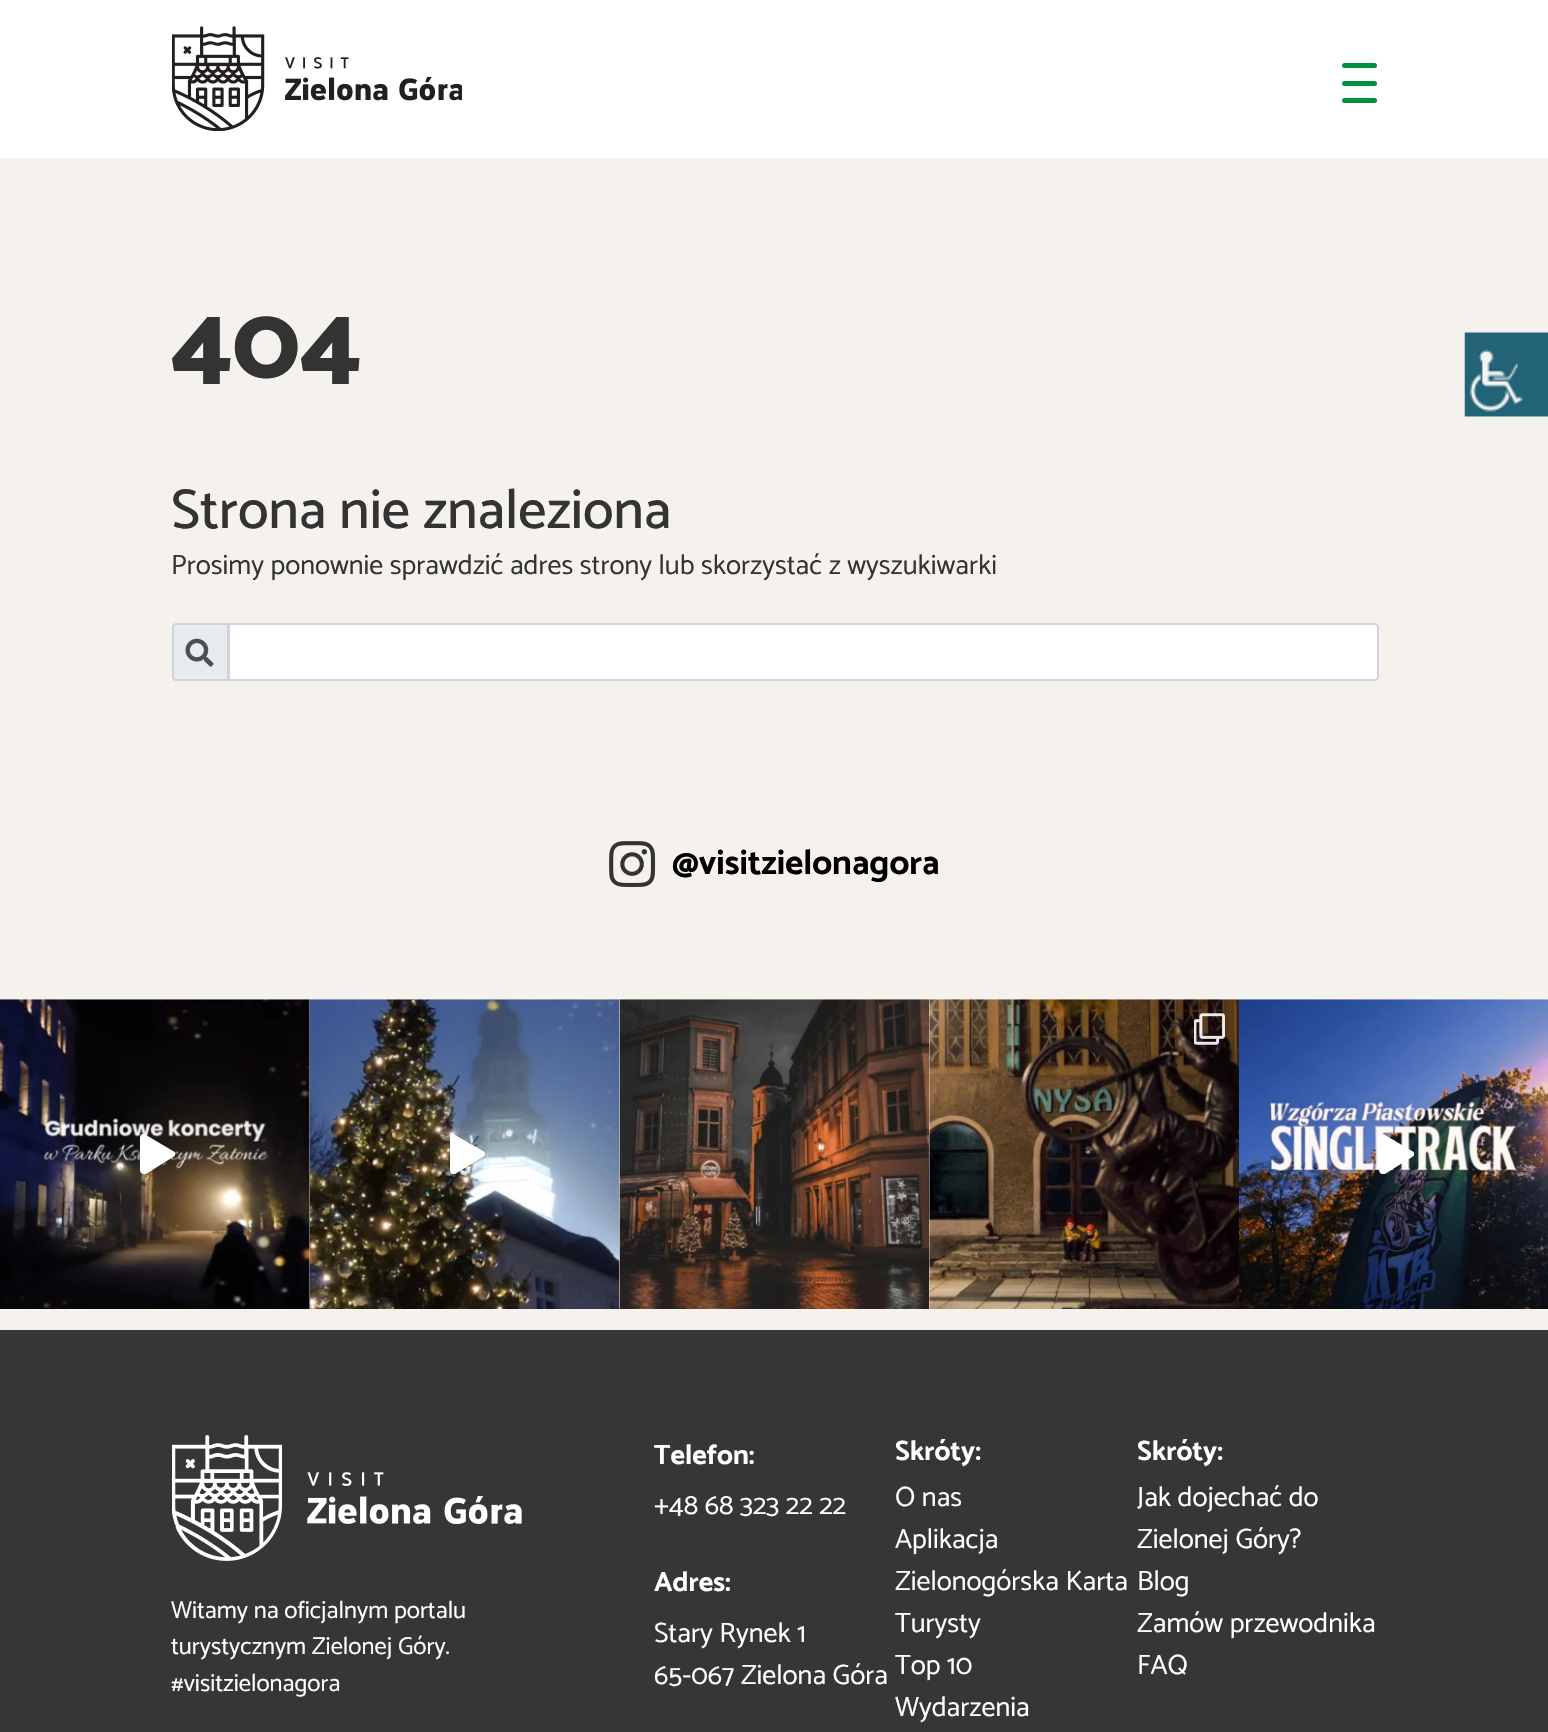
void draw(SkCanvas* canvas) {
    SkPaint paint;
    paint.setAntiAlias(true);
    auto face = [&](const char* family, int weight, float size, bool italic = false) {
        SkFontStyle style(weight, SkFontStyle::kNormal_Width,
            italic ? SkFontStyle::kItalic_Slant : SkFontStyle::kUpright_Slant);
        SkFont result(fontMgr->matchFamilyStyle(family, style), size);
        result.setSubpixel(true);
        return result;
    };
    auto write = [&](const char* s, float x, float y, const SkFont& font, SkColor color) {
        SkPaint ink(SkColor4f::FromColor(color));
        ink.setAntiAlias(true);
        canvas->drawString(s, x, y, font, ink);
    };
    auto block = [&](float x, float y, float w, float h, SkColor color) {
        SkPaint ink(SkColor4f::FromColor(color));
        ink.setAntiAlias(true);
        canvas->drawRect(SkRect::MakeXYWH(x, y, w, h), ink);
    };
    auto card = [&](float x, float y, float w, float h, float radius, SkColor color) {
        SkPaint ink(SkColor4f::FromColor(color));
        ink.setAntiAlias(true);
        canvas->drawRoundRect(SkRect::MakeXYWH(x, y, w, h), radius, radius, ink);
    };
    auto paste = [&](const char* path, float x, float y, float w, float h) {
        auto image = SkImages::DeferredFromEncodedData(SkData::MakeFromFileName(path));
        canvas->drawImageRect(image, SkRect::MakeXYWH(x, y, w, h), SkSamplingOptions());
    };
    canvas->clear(SkColorSetRGB(245, 241, 237));
    block(0, 0, 1548, 158, SK_ColorWHITE);
    paste("pic1.png", 172, 26, 290, 105);
    card(1342, 63, 35, 5, 2.5f, SkColorSetRGB(0, 145, 64));
    card(1342, 81, 35, 5, 2.5f, SkColorSetRGB(0, 145, 64));
    card(1342, 98, 35, 5, 2.5f, SkColorSetRGB(0, 145, 64));
    auto kFont1 = face("Catamaran", 800, 105);
    write("404", 171, 377, kFont1, SkColorSetRGB(51, 51, 51));
    auto kFont2 = face("Catamaran", 500, 56);
    write("Strona nie znaleziona", 171, 528, kFont2, SkColorSetRGB(51, 51, 51));
    auto kFont3 = face("Catamaran", 400, 28);
    write("Prosimy ponownie sprawdzić adres strony lub skorzystać z wyszukiwarki", 171, 574, kFont3, SkColorSetRGB(51, 51, 51));
    paint.setColor(SkColorSetRGB(233, 236, 239));
    canvas->drawPath(SkPathBuilder().moveTo(176, 624).lineTo(228, 624).lineTo(228, 680).lineTo(176, 680).cubicTo(174.5f, 680, 173, 678.5f, 173, 677).lineTo(173, 627).cubicTo(173, 625.5f, 174.5f, 624, 176, 624).close().detach(), paint);
    paint.setStyle(SkPaint::kStroke_Style);
    paint.setStrokeWidth(2);
    paint.setColor(SkColorSetRGB(206, 212, 218));
    canvas->drawPath(SkPathBuilder().moveTo(176, 624).lineTo(228, 624).lineTo(228, 680).lineTo(176, 680).cubicTo(174.5f, 680, 173, 678.5f, 173, 677).lineTo(173, 627).cubicTo(173, 625.5f, 174.5f, 624, 176, 624).close().detach(), paint);
    paste("pic2.png", 185, 638, 29, 29);
    paint.setStyle(SkPaint::kFill_Style);
    paint.setColor(SK_ColorWHITE);
    canvas->drawPath(SkPathBuilder().moveTo(229, 624).lineTo(1375, 624).cubicTo(1376.5f, 624, 1378, 625.5f, 1378, 627).lineTo(1378, 677).cubicTo(1378, 678.5f, 1376.5f, 680, 1375, 680).lineTo(229, 680).close().detach(), paint);
    paint.setStyle(SkPaint::kStroke_Style);
    paint.setColor(SkColorSetRGB(206, 212, 218));
    canvas->drawPath(SkPathBuilder().moveTo(229, 624).lineTo(1375, 624).cubicTo(1376.5f, 624, 1378, 625.5f, 1378, 627).lineTo(1378, 677).cubicTo(1378, 678.5f, 1376.5f, 680, 1375, 680).lineTo(229, 680).close().detach(), paint);
    paste("pic3.png", 609, 841, 47, 46);
    auto kFont4 = face("Catamaran", 700, 35);
    write("@visitzielonagora", 672, 874, kFont4, SK_ColorBLACK);
    paste("pic4.png", 0, 999, 310, 310);
    canvas->save();
    canvas->clipRect(SkRect::MakeXYWH(140, 1134, 35, 40));
    paint.setStyle(SkPaint::kFill_Style);
    paint.setColor(SK_ColorWHITE);
    canvas->drawPath(SkPathBuilder().moveTo(173, 1151).lineTo(146, 1135).cubicTo(143, 1133, 140, 1134, 140, 1138).lineTo(140, 1170).cubicTo(140, 1173, 143, 1175, 146, 1174).lineTo(173, 1157).cubicTo(176, 1156, 176, 1152, 173, 1151).close().detach(), paint);
    canvas->restore();
    paste("pic5.png", 309, 999, 311, 310);
    canvas->save();
    canvas->clipRect(SkRect::MakeXYWH(450, 1134, 35, 40));
    canvas->drawPath(SkPathBuilder().moveTo(483, 1151).lineTo(455, 1135).cubicTo(453, 1133, 450, 1134, 450, 1138).lineTo(450, 1170).cubicTo(450, 1173, 453, 1175, 455, 1174).lineTo(483, 1157).cubicTo(486, 1156, 486, 1152, 483, 1151).close().detach(), paint);
    canvas->restore();
    paste("pic6.png", 619, 999, 311, 310);
    paste("pic7.png", 929, 999, 310, 310);
    paste("pic8.png", 1194, 1013, 31, 32);
    paste("pic9.png", 1239, 999, 309, 310);
    canvas->save();
    canvas->clipRect(SkRect::MakeXYWH(1379, 1134, 35, 40));
    canvas->drawPath(SkPathBuilder().moveTo(1412, 1151).lineTo(1385, 1135).cubicTo(1382, 1133, 1379, 1134, 1379, 1138).lineTo(1379, 1170).cubicTo(1379, 1173, 1382, 1175, 1385, 1174).lineTo(1412, 1157).cubicTo(1415, 1156, 1415, 1152, 1412, 1151).close().detach(), paint);
    canvas->restore();
    block(1465, 416, 83, 1, SK_ColorWHITE);
    paste("pic10.png", 1464, 332, 84, 85);
    block(0, 1330, 1548, 402, SkColorSetRGB(54, 54, 54));
    paste("pic11.png", 172, 1435, 350, 126);
    auto kFont5 = face("Catamaran", 400, 24.5f);
    write("Witamy na oficjalnym portalu", 171, 1618, kFont5, SK_ColorWHITE);
    write("turystycznym Zielonej Góry.", 171, 1654, kFont5, SK_ColorWHITE);
    write("#visitzielonagora", 171, 1691, kFont5, SK_ColorWHITE);
    auto kFont6 = face("Catamaran", 700, 28);
    write("Telefon:", 654, 1464, kFont6, SK_ColorWHITE);
    write("+48 68 323 22 22", 654, 1514, kFont3, SK_ColorWHITE);
    write("Adres:", 654, 1591, kFont6, SK_ColorWHITE);
    write("Stary Rynek 1", 654, 1642, kFont3, SK_ColorWHITE);
    write("65-067 Zielona Góra", 654, 1684, kFont3, SK_ColorWHITE);
    write("Skróty:", 895, 1460, kFont6, SK_ColorWHITE);
    write("O nas", 895, 1506, kFont3, SK_ColorWHITE);
    write("Aplikacja", 895, 1548, kFont3, SK_ColorWHITE);
    write("Zielonogórska Karta", 895, 1590, kFont3, SK_ColorWHITE);
    write("Turysty", 895, 1632, kFont3, SK_ColorWHITE);
    write("Top 10", 895, 1674, kFont3, SK_ColorWHITE);
    write("Wydarzenia", 895, 1716, kFont3, SK_ColorWHITE);
    write("Skróty:", 1137, 1460, kFont6, SK_ColorWHITE);
    write("Jak dojechać do", 1137, 1506, kFont3, SK_ColorWHITE);
    write("Zielonej Góry?", 1137, 1548, kFont3, SK_ColorWHITE);
    write("Blog", 1137, 1590, kFont3, SK_ColorWHITE);
    write("Zamów przewodnika", 1137, 1632, kFont3, SK_ColorWHITE);
    write("FAQ", 1137, 1674, kFont3, SK_ColorWHITE);
}
